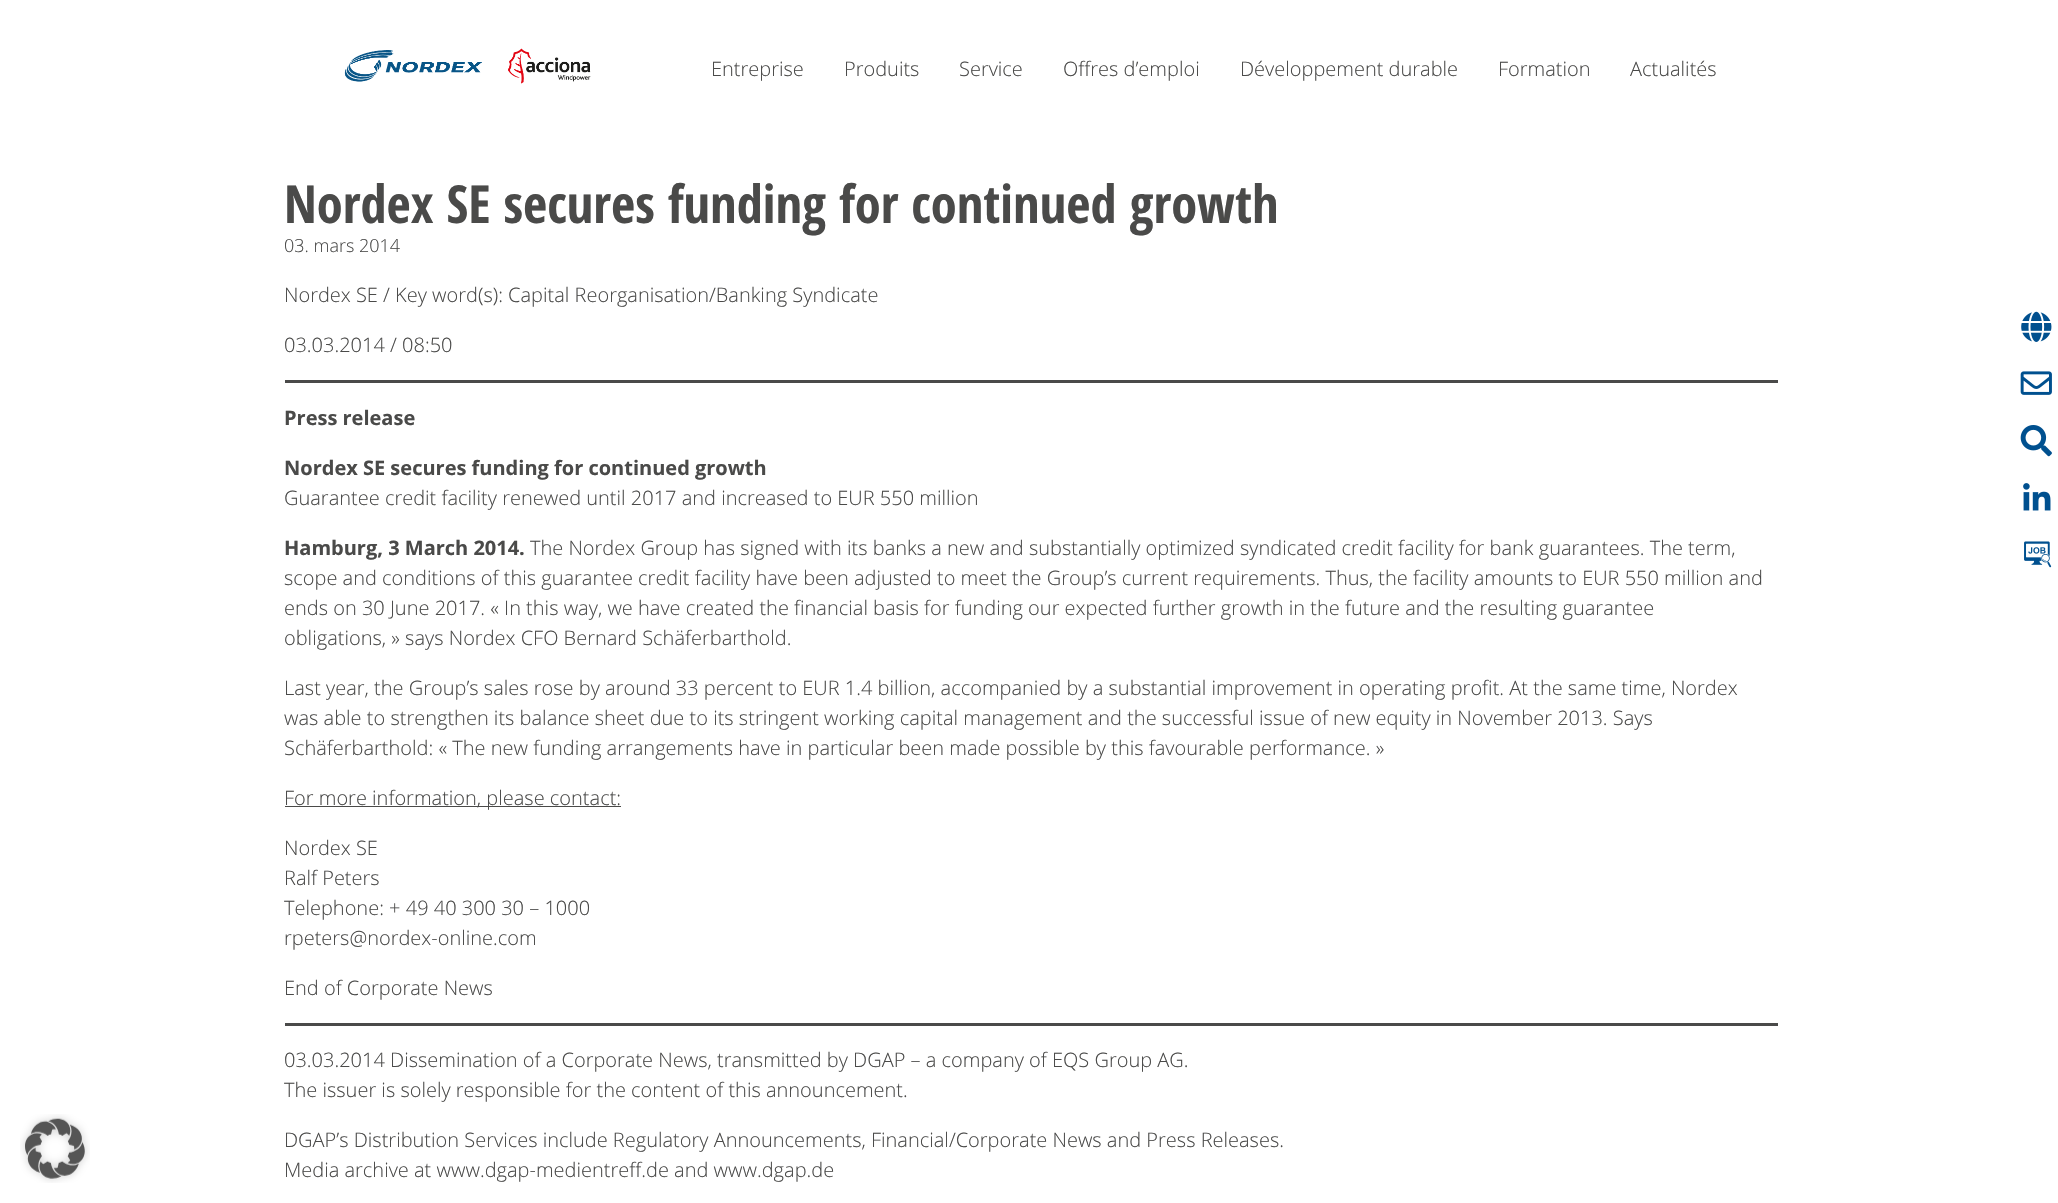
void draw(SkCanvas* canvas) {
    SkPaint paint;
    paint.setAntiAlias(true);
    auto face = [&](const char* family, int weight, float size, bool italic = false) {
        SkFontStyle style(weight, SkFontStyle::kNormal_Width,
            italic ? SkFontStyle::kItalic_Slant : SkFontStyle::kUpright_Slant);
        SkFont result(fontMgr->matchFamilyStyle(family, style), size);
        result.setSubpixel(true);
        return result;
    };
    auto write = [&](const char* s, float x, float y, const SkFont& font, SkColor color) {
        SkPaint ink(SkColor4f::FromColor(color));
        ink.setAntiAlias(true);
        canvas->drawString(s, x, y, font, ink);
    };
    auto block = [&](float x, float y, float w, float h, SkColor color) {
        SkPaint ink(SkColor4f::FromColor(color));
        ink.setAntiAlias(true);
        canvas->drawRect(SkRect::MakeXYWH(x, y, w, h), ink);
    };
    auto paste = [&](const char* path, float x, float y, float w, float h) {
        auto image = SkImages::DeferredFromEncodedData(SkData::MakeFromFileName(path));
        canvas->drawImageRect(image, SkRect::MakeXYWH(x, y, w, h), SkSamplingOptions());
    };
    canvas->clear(SK_ColorWHITE);
    paste("pic1.png", 344, 48, 247, 36);
    auto kFont1 = face("Open Sans", 300, 20);
    write("Entreprise", 711, 76, kFont1, SkColorSetRGB(74, 74, 73));
    write("Produits", 844, 76, kFont1, SkColorSetRGB(74, 74, 73));
    write("Service", 959, 76, kFont1, SkColorSetRGB(74, 74, 73));
    write("Offres d’emploi", 1063, 76, kFont1, SkColorSetRGB(74, 74, 73));
    write("Développement durable", 1240, 76, kFont1, SkColorSetRGB(74, 74, 73));
    write("Formation", 1498, 76, kFont1, SkColorSetRGB(74, 74, 73));
    write("Actualités", 1630, 76, kFont1, SkColorSetRGB(74, 74, 73));
    auto kFont2 = face("Open Sans Condensed", 700, 52.5f);
    write("Nordex SE secures funding for continued growth", 284, 223, kFont2, SkColorSetRGB(74, 74, 73));
    auto kFont3 = face("Open Sans", 300, 18);
    write("03. mars 2014", 284, 252, kFont3, SkColorSetRGB(74, 74, 73));
    write("Nordex SE / Key word(s): Capital Reorganisation/Banking Syndicate", 284, 302, kFont1, SkColorSetRGB(74, 74, 73));
    write("03.03.2014 / 08:50", 284, 352, kFont1, SkColorSetRGB(74, 74, 73));
    block(285, 380, 1493, 3, SkColorSetRGB(74, 74, 73));
    auto kFont4 = face("Open Sans", 700, 20);
    write("Press release", 284, 425, kFont4, SkColorSetRGB(74, 74, 73));
    write("Nordex SE secures funding for continued growth", 284, 475, kFont4, SkColorSetRGB(74, 74, 73));
    write("Guarantee credit facility renewed until 2017 and increased to EUR 550 million", 284, 505, kFont1, SkColorSetRGB(74, 74, 73));
    write("Hamburg, 3 March 2014.", 284, 555, kFont4, SkColorSetRGB(74, 74, 73));
    write("The Nordex Group has signed with its banks a new and substantially optimized syndicated credit facility for bank guarantees. The term,", 530, 555, kFont1, SkColorSetRGB(74, 74, 73));
    write("scope and conditions of this guarantee credit facility have been adjusted to meet the Group’s current requirements. Thus, the facility amounts to EUR 550 million and", 284, 585, kFont1, SkColorSetRGB(74, 74, 73));
    write("ends on 30 June 2017. « In this way, we have created the financial basis for funding our expected further growth in the future and the resulting guarantee", 284, 615, kFont1, SkColorSetRGB(74, 74, 73));
    write("obligations, » says Nordex CFO Bernard Schäferbarthold.", 284, 645, kFont1, SkColorSetRGB(74, 74, 73));
    write("Last year, the Group’s sales rose by around 33 percent to EUR 1.4 billion, accompanied by a substantial improvement in operating profit. At the same time, Nordex", 284, 695, kFont1, SkColorSetRGB(74, 74, 73));
    write("was able to strengthen its balance sheet due to its stringent working capital management and the successful issue of new equity in November 2013. Says", 284, 725, kFont1, SkColorSetRGB(74, 74, 73));
    write("Schäferbarthold: « The new funding arrangements have in particular been made possible by this favourable performance. »", 284, 755, kFont1, SkColorSetRGB(74, 74, 73));
    block(285, 806, 336, 1, SkColorSetRGB(74, 74, 73));
    write("For more information, please contact:", 284, 805, kFont1, SkColorSetRGB(74, 74, 73));
    write("Nordex SE", 284, 855, kFont1, SkColorSetRGB(74, 74, 73));
    write("Ralf Peters", 284, 885, kFont1, SkColorSetRGB(74, 74, 73));
    write("Telephone: + 49 40 300 30 – 1000", 284, 915, kFont1, SkColorSetRGB(74, 74, 73));
    write("rpeters@nordex-online.com", 284, 945, kFont1, SkColorSetRGB(74, 74, 73));
    write("End of Corporate News", 284, 995, kFont1, SkColorSetRGB(74, 74, 73));
    block(285, 1023, 1493, 3, SkColorSetRGB(74, 74, 73));
    write("03.03.2014 Dissemination of a Corporate News, transmitted by DGAP – a company of EQS Group AG.", 284, 1067, kFont1, SkColorSetRGB(74, 74, 73));
    write("The issuer is solely responsible for the content of this announcement.", 284, 1097, kFont1, SkColorSetRGB(74, 74, 73));
    write("DGAP’s Distribution Services include Regulatory Announcements, Financial/Corporate News and Press Releases.", 284, 1147, kFont1, SkColorSetRGB(74, 74, 73));
    write("Media archive at www.dgap-medientreff.de and www.dgap.de", 284, 1177, kFont1, SkColorSetRGB(74, 74, 73));
    paste("pic2.png", 2021, 311, 31, 31);
    paste("pic3.png", 2020, 371, 32, 24);
    paste("pic4.png", 2020, 425, 32, 32);
    paste("pic5.png", 2023, 483, 28, 28);
    paste("pic6.png", 2024, 541, 28, 27);
    paste("pic7.png", 20, 1114, 70, 69);
}
